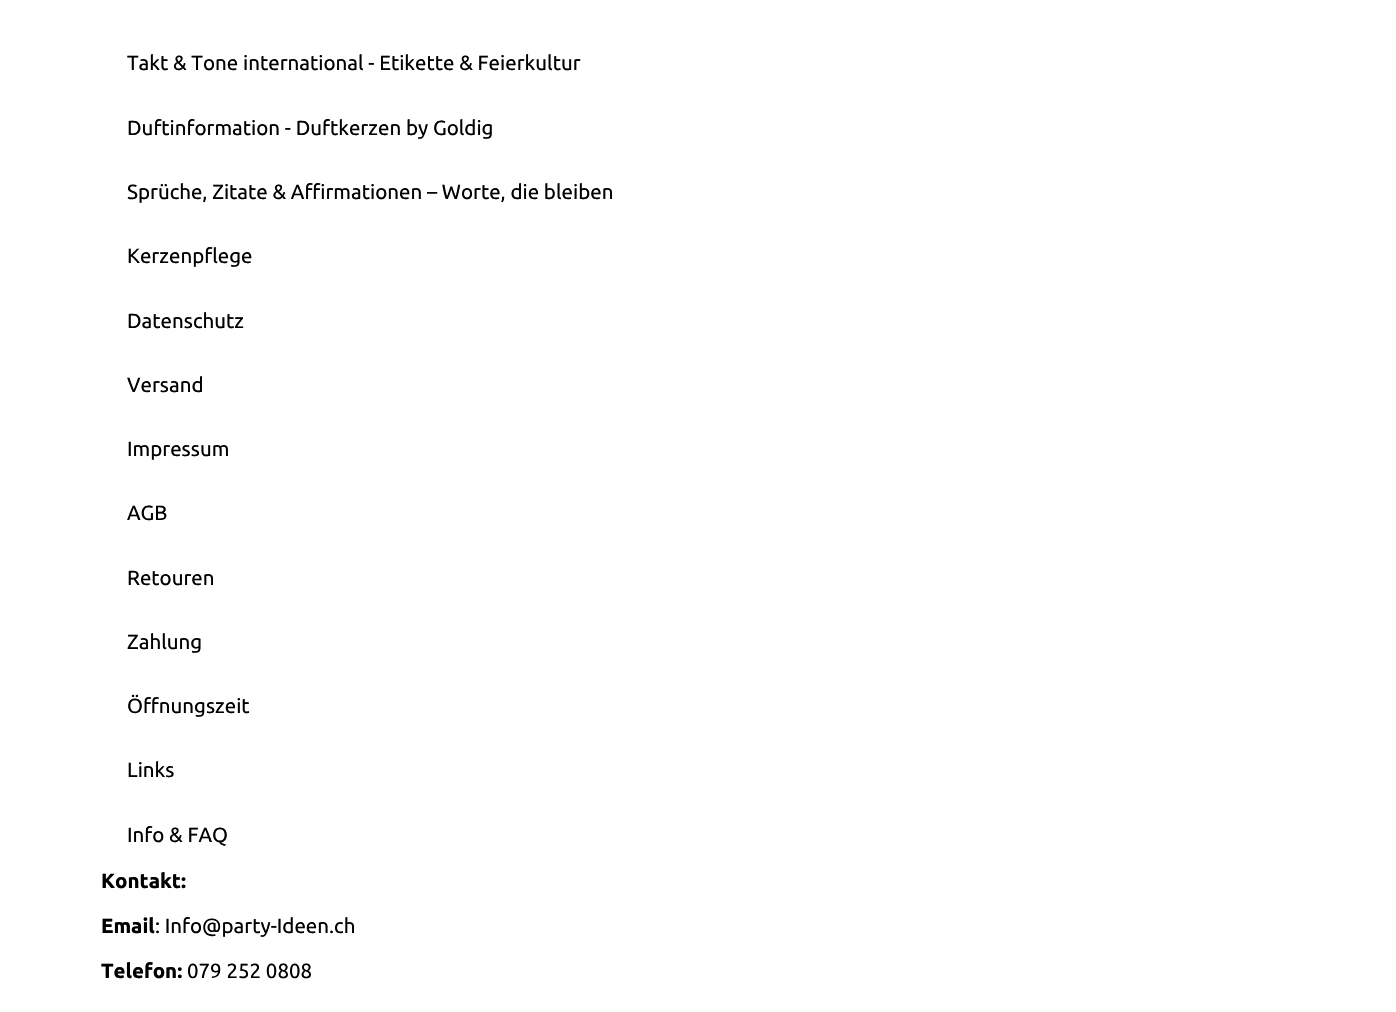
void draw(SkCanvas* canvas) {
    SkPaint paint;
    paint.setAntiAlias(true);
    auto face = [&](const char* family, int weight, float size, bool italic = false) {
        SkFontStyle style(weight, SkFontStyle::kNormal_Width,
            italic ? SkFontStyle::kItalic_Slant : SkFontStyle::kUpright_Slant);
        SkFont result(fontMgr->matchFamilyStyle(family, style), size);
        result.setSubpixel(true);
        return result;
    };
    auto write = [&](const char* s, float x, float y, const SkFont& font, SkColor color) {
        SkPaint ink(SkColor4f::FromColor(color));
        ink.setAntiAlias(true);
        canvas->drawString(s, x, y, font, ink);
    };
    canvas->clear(SK_ColorWHITE);
    auto kFont1 = face("Ubuntu", 400, 20.5f);
    write("Takt & Tone international - Etikette & Feierkultur", 127, 70, kFont1, SK_ColorBLACK);
    write("Duftinformation - Duftkerzen by Goldig", 127, 135, kFont1, SK_ColorBLACK);
    write("Sprüche, Zitate & Affirmationen – Worte, die bleiben", 127, 199, kFont1, SK_ColorBLACK);
    write("Kerzenpflege", 127, 263, kFont1, SK_ColorBLACK);
    write("Datenschutz", 127, 328, kFont1, SK_ColorBLACK);
    write("Versand", 127, 392, kFont1, SK_ColorBLACK);
    write("Impressum", 127, 456, kFont1, SK_ColorBLACK);
    write("AGB", 127, 520, kFont1, SK_ColorBLACK);
    write("Retouren", 127, 585, kFont1, SK_ColorBLACK);
    write("Zahlung", 127, 649, kFont1, SK_ColorBLACK);
    write("Öffnungszeit", 127, 713, kFont1, SK_ColorBLACK);
    write("Links", 127, 777, kFont1, SK_ColorBLACK);
    write("Info & FAQ", 127, 842, kFont1, SK_ColorBLACK);
    auto kFont2 = face("Ubuntu", 700, 20.5f);
    write("Kontakt:", 101, 888, kFont2, SK_ColorBLACK);
    write("Email", 101, 933, kFont2, SK_ColorBLACK);
    write(": Info@party-Ideen.ch", 155, 933, kFont1, SK_ColorBLACK);
    write("Telefon:", 101, 978, kFont2, SK_ColorBLACK);
    write("079 252 0808", 187, 978, kFont1, SK_ColorBLACK);
}
